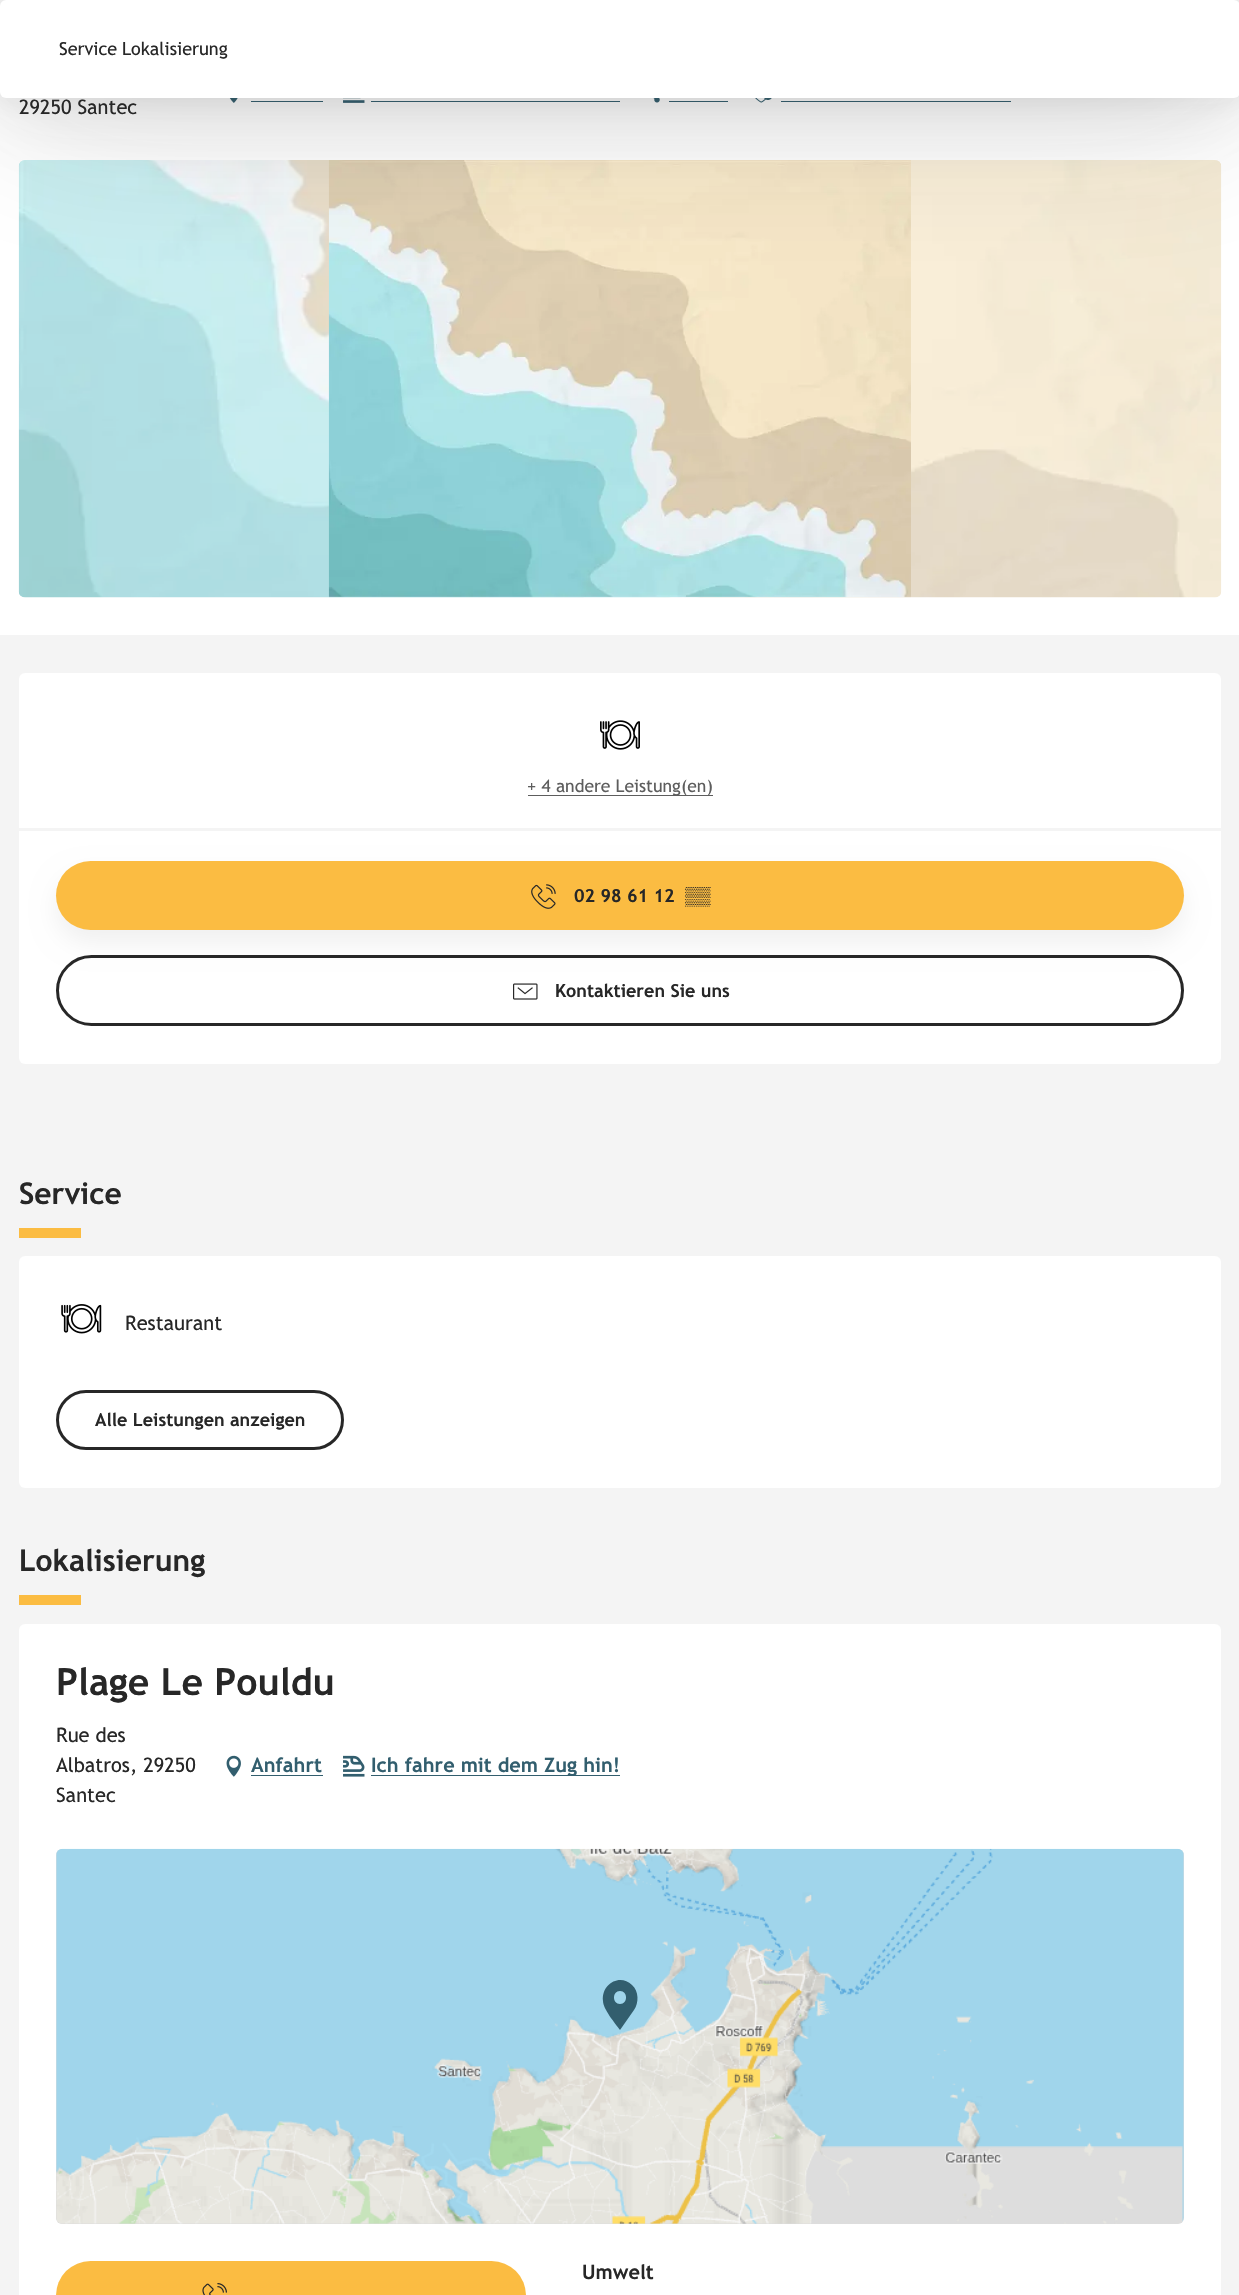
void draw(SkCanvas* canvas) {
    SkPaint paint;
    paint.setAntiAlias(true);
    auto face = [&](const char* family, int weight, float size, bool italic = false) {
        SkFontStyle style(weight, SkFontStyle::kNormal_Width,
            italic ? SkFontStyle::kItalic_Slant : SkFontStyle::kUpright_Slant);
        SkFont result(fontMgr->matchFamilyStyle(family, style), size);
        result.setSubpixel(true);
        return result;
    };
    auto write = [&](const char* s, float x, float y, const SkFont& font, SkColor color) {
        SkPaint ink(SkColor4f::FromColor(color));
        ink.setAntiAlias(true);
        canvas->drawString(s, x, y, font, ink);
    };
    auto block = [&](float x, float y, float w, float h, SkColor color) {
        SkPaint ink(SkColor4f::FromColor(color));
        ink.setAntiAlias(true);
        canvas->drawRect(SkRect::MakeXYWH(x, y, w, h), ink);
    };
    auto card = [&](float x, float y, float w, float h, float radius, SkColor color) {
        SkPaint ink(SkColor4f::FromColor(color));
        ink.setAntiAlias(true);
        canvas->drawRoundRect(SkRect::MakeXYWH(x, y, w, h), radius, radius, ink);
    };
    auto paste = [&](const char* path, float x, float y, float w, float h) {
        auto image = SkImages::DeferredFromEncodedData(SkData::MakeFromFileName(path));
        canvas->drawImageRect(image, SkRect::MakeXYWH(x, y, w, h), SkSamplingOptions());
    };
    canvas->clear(SK_ColorWHITE);
    block(0, 635, 1239, 1660, SkColorSetRGB(244, 244, 244));
    paste("pic9.png", 229, 98, 9, 5);
    block(251, 101, 72, 1, SkColorSetRGB(50, 94, 110));
    paste("pic10.png", 343, 98, 22, 5);
    block(371, 101, 249, 1, SkColorSetRGB(50, 94, 110));
    paste("pic11.png", 653, 98, 7, 5);
    block(669, 101, 59, 1, SkColorSetRGB(50, 94, 110));
    paste("pic12.png", 755, 98, 17, 5);
    block(781, 101, 230, 1, SkColorSetRGB(50, 94, 110));
    paste("pic13.png", 18, 160, 1204, 438);
    card(19, 160, 1202, 438, 6, SkColorSetARGB(77, 255, 255, 255));
    paste("pic14.png", 328, 160, 583, 438);
    paint.setColor(SkColorSetARGB(51, 39, 39, 39));
    paint.setMaskFilter(SkMaskFilter::MakeBlur(kNormal_SkBlurStyle, 87.5f));
    canvas->drawRoundRect(SkRect::MakeXYWH(0, 0, 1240, 98), 6, 6, paint);
    paint.setMaskFilter(nullptr);
    paint.setColor(SkColorSetARGB(38, 39, 39, 39));
    paint.setMaskFilter(SkMaskFilter::MakeBlur(kNormal_SkBlurStyle, 44));
    canvas->drawRoundRect(SkRect::MakeXYWH(0, 0, 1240, 98), 6, 6, paint);
    paint.setMaskFilter(nullptr);
    paint.setColor(SkColorSetARGB(18, 39, 39, 39));
    paint.setMaskFilter(SkMaskFilter::MakeBlur(kNormal_SkBlurStyle, 14.5f));
    canvas->drawRoundRect(SkRect::MakeXYWH(0, 0, 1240, 98), 6, 6, paint);
    paint.setMaskFilter(nullptr);
    card(0, 0, 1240, 98, 6, SK_ColorWHITE);
    auto kFont1 = face("Trebuchet MS", 400, 18);
    write("Service", 59, 55, kFont1, SkColorSetRGB(39, 39, 39));
    write("Lokalisierung", 122, 55, kFont1, SkColorSetRGB(39, 39, 39));
    auto kFont2 = face("Trebuchet MS", 700, 30);
    write("Service", 19, 1204, kFont2, SkColorSetRGB(39, 39, 39));
    block(19, 1228, 62, 10, SkColorSetRGB(251, 188, 66));
    card(19, 1256, 1202, 232, 6, SK_ColorWHITE);
    paste("pic1.png", 61, 1304, 41, 30);
    auto kFont3 = face("Trebuchet MS", 400, 20);
    write("Restaurant", 125, 1330, kFont3, SkColorSetRGB(39, 39, 39));
    paint.setStyle(SkPaint::kStroke_Style);
    paint.setStrokeWidth(3);
    paint.setColor(SkColorSetRGB(39, 39, 39));
    canvas->drawRoundRect(SkRect::MakeXYWH(57.5f, 1391.5f, 285, 57), 28.5f, 28.5f, paint);
    auto kFont4 = face("Trebuchet MS", 700, 18);
    write("Alle Leistungen anzeigen", 95, 1426, kFont4, SkColorSetRGB(39, 39, 39));
    card(19, 673, 1202, 391, 6, SK_ColorWHITE);
    paste("pic2.png", 600, 720, 40, 30);
    block(528, 795, 185, 1, SkColorSetRGB(93, 93, 93));
    auto kFont5 = face("Trebuchet MS", 400, 17.5f);
    write("+ 4 andere Leistung(en)", 527, 792, kFont5, SkColorSetRGB(93, 93, 93));
    block(19, 828, 1202, 3, SkColorSetRGB(244, 244, 244));
    canvas->drawRoundRect(SkRect::MakeXYWH(57.5f, 956.5f, 1125, 68), 34, 34, paint);
    paint.setStyle(SkPaint::kFill_Style);
    paint.setColor(SkColorSetARGB(15, 0, 0, 0));
    paint.setMaskFilter(SkMaskFilter::MakeBlur(kNormal_SkBlurStyle, 12.5f));
    canvas->drawRoundRect(SkRect::MakeXYWH(56, 874, 1128, 69), 34.5f, 34.5f, paint);
    paint.setMaskFilter(nullptr);
    card(56, 861, 1128, 69, 34.5f, SkColorSetRGB(251, 188, 66));
    paste("pic3.png", 531, 884, 25, 25);
    write("02 98 61 12", 574, 902, kFont4, SkColorSetRGB(39, 39, 39));
    auto kFont6 = face("Liberation Sans", 700, 18);
    write("▒▒", 685, 902, kFont6, SkColorSetRGB(39, 39, 39));
    paste("pic4.png", 513, 983, 25, 17);
    write("Kontaktieren Sie uns", 555, 997, kFont4, SkColorSetRGB(39, 39, 39));
    write("Lokalisierung", 19, 1571, kFont2, SkColorSetRGB(39, 39, 39));
    block(19, 1595, 62, 10, SkColorSetRGB(251, 188, 66));
    card(19, 1624, 1202, 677, 6, SK_ColorWHITE);
    auto kFont7 = face("Trebuchet MS", 700, 37.5f);
    write("Plage Le Pouldu", 56, 1695, kFont7, SkColorSetRGB(39, 39, 39));
    write("Rue des", 56, 1742, kFont3, SkColorSetRGB(39, 39, 39));
    write("Albatros, 29250", 56, 1772, kFont3, SkColorSetRGB(39, 39, 39));
    write("Santec", 56, 1802, kFont3, SkColorSetRGB(39, 39, 39));
    paste("pic5.png", 226, 1755, 15, 22);
    auto kFont8 = face("Trebuchet MS", 700, 20);
    write("Anfahrt", 251, 1772, kFont8, SkColorSetRGB(50, 94, 110));
    block(251, 1775, 72, 1, SkColorSetRGB(50, 94, 110));
    paste("pic6.png", 343, 1755, 22, 22);
    block(371, 1775, 249, 1, SkColorSetRGB(50, 94, 110));
    write("Ich fahre mit dem Zug hin!", 371, 1772, kFont8, SkColorSetRGB(50, 94, 110));
    card(56, 1849, 1128, 375, 6, SkColorSetRGB(221, 221, 221));
    paste("pic7.png", 56, 1848, 1128, 376);
    paint.setColor(SkColorSetRGB(50, 94, 110));
    canvas->drawPath(SkPathBuilder().moveTo(632, 1985).cubicTo(620, 1973, 601, 1984, 603, 2001).cubicTo(603, 2009, 615, 2023, 620, 2030).lineTo(634, 2010).cubicTo(639, 2003, 639, 1991, 632, 1985).close().moveTo(620, 2004).cubicTo(612, 2004, 612, 1991, 620, 1991).cubicTo(628, 1991, 628, 2004, 620, 2004).close().detach(), paint);
    card(56, 2261, 470, 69, 34.5f, SkColorSetRGB(251, 188, 66));
    paste("pic8.png", 202, 2283, 25, 12);
    write("Umwelt", 582, 2279, kFont8, SkColorSetRGB(39, 39, 39));
    write("29250 Santec", 19, 114, kFont3, SkColorSetRGB(39, 39, 39));
}
